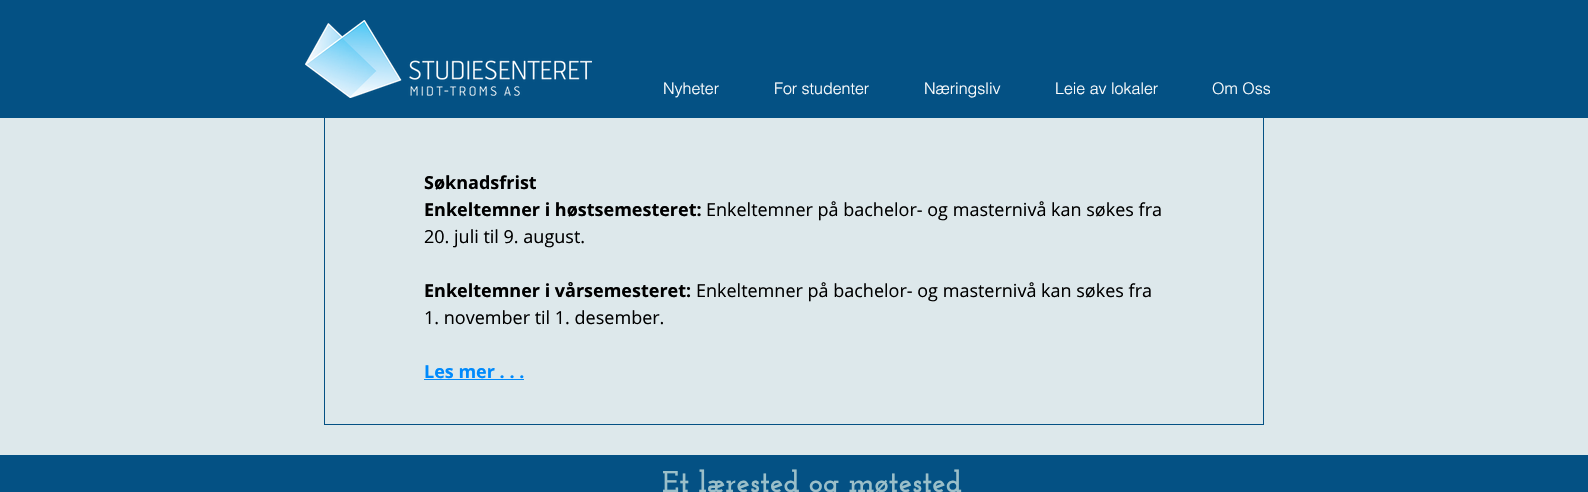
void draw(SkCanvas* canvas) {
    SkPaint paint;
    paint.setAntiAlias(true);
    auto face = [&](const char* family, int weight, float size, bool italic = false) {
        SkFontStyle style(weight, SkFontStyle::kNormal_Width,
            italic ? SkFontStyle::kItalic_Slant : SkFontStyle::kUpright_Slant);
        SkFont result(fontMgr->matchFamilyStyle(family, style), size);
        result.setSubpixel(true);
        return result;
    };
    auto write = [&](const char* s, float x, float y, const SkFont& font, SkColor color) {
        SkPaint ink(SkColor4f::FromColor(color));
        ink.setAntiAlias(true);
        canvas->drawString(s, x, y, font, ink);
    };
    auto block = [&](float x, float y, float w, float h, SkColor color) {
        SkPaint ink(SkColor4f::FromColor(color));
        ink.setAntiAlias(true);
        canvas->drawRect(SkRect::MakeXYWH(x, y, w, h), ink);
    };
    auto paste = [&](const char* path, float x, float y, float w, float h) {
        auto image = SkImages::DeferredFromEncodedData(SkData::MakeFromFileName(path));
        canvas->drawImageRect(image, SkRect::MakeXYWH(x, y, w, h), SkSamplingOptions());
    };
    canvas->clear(SkColorSetRGB(221, 232, 235));
    paint.setStyle(SkPaint::kStroke_Style);
    paint.setStrokeWidth(1);
    paint.setColor(SkColorSetRGB(4, 81, 132));
    canvas->drawRect(SkRect::MakeXYWH(324.5f, -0.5f, 939, 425), paint);
    block(0, 0, 1588, 118, SkColorSetRGB(4, 81, 132));
    paste("pic1.png", 305, 20, 287, 78);
    auto kFont1 = face("helvetica", 300, 16);
    write("Nyheter", 663, 94, kFont1, SK_ColorWHITE);
    write("For studenter", 774, 94, kFont1, SK_ColorWHITE);
    write("Næringsliv", 924, 94, kFont1, SK_ColorWHITE);
    write("Leie av lokaler", 1055, 94, kFont1, SK_ColorWHITE);
    write("Om Oss", 1212, 94, kFont1, SK_ColorWHITE);
    auto kFont2 = face("Open Sans", 700, 18);
    write("Søknadsfrist", 424, 189, kFont2, SK_ColorBLACK);
    write("Enkeltemner i høstsemesteret:", 424, 216, kFont2, SK_ColorBLACK);
    auto kFont3 = face("Open Sans", 400, 18);
    write("Enkeltemner på bachelor- og masternivå kan søkes fra", 706, 216, kFont3, SK_ColorBLACK);
    write("20. juli til 9. august.", 424, 243, kFont3, SK_ColorBLACK);
    write("Enkeltemner i vårsemesteret:", 424, 297, kFont2, SK_ColorBLACK);
    write("Enkeltemner på bachelor- og masternivå kan søkes fra", 696, 297, kFont3, SK_ColorBLACK);
    write("1. november til 1. desember.", 424, 324, kFont3, SK_ColorBLACK);
    write("Les mer . . .", 424, 378, kFont2, SkColorSetRGB(0, 138, 252));
    block(424, 379, 100, 1, SkColorSetRGB(0, 138, 252));
    block(0, 455, 1588, 37, SkColorSetRGB(4, 81, 132));
    auto kFont4 = face("Josefin Slab", 700, 30);
    write("Et lærested og møtested", 662, 492, kFont4, SkColorSetRGB(155, 191, 201));
}
